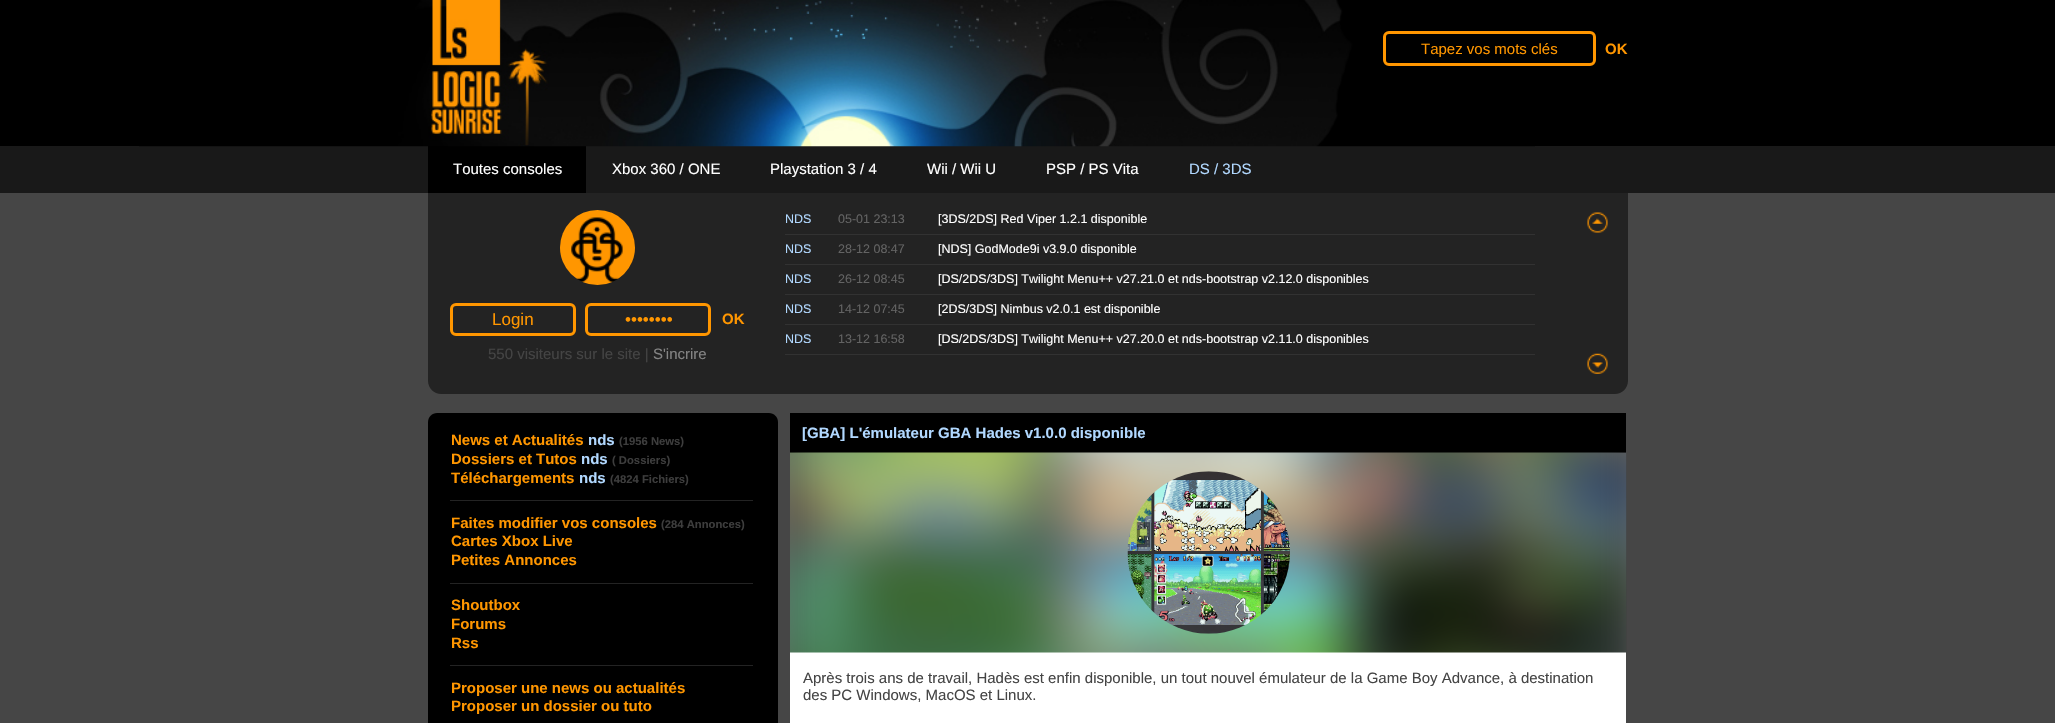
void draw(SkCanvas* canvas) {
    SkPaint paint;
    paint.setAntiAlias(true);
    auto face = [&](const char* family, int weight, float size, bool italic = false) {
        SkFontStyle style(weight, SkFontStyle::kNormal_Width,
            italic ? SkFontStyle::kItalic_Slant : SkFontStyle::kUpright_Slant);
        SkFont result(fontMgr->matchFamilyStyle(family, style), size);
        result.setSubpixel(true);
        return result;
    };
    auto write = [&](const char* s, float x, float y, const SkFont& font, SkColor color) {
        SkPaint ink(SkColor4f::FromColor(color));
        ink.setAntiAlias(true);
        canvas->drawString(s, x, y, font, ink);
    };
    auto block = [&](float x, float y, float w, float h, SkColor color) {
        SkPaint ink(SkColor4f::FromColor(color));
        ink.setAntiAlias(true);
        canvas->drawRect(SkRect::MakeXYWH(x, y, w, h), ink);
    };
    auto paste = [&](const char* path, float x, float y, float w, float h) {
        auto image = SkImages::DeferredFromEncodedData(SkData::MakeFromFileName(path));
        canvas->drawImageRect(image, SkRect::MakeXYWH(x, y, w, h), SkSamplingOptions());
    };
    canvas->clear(SkColorSetRGB(70, 70, 70));
    block(0, 0, 2055, 146, SK_ColorBLACK);
    block(0, 146, 2055, 47, SkColorSetRGB(25, 25, 25));
    block(428, 146, 158, 47, SK_ColorBLACK);
    paste("pic1.png", 139, 0, 1396, 147);
    paint.setStyle(SkPaint::kStroke_Style);
    paint.setStrokeWidth(3);
    paint.setColor(SkColorSetRGB(255, 150, 0));
    canvas->drawRoundRect(SkRect::MakeXYWH(1384.5f, 32.5f, 210, 32), 4.5f, 4.5f, paint);
    auto kFont1 = face("Liberation Sans", 400, 15);
    write("Tapez vos mots clés", 1421, 54, kFont1, SkColorSetRGB(255, 150, 0));
    auto kFont2 = face("Liberation Sans", 700, 15);
    write("OK", 1605, 54, kFont2, SkColorSetRGB(255, 150, 0));
    write("Toutes consoles", 453, 174, kFont1, SK_ColorWHITE);
    write("Xbox 360 / ONE", 612, 174, kFont1, SK_ColorWHITE);
    write("Playstation 3 / 4", 770, 174, kFont1, SK_ColorWHITE);
    write("Wii / Wii U", 927, 174, kFont1, SK_ColorWHITE);
    write("PSP / PS Vita", 1046, 174, kFont1, SK_ColorWHITE);
    write("DS / 3DS", 1189, 174, kFont1, SkColorSetRGB(177, 216, 255));
    paint.setStyle(SkPaint::kFill_Style);
    paint.setColor(SkColorSetRGB(35, 35, 35));
    canvas->drawPath(SkPathBuilder().moveTo(428, 193).lineTo(1628, 193).lineTo(1628, 381).cubicTo(1628, 388, 1622, 394, 1615, 394).lineTo(441, 394).cubicTo(434, 394, 428, 388, 428, 381).close().detach(), paint);
    paste("pic2.png", 560, 210, 75, 75);
    paint.setStyle(SkPaint::kStroke_Style);
    paint.setColor(SkColorSetRGB(255, 150, 0));
    canvas->drawRoundRect(SkRect::MakeXYWH(451.5f, 304.5f, 123, 30), 4.5f, 4.5f, paint);
    auto kFont3 = face("Liberation Sans", 400, 17);
    write("Login", 492, 325, kFont3, SkColorSetRGB(255, 150, 0));
    canvas->drawRoundRect(SkRect::MakeXYWH(586.5f, 304.5f, 123, 30), 4.5f, 4.5f, paint);
    write("••••••••", 625, 325, kFont3, SkColorSetRGB(255, 150, 0));
    write("OK", 722, 324, kFont2, SkColorSetRGB(255, 150, 0));
    write("550 visiteurs sur le site |", 488, 359, kFont1, SkColorSetRGB(68, 68, 68));
    write("S'incrire", 653, 359, kFont1, SkColorSetRGB(132, 132, 132));
    auto kFont4 = face("Liberation Sans", 400, 12.5f);
    write("NDS", 785, 223, kFont4, SkColorSetRGB(177, 216, 255));
    write("05-01 23:13", 838, 223, kFont4, SkColorSetRGB(99, 99, 99));
    write("[3DS/2DS] Red Viper 1.2.1 disponible", 938, 223, kFont4, SK_ColorWHITE);
    block(785, 234, 750, 1, SkColorSetRGB(50, 50, 50));
    write("NDS", 785, 253, kFont4, SkColorSetRGB(177, 216, 255));
    write("28-12 08:47", 838, 253, kFont4, SkColorSetRGB(99, 99, 99));
    write("[NDS] GodMode9i v3.9.0 disponible", 938, 253, kFont4, SK_ColorWHITE);
    block(785, 264, 750, 1, SkColorSetRGB(50, 50, 50));
    write("NDS", 785, 283, kFont4, SkColorSetRGB(177, 216, 255));
    write("26-12 08:45", 838, 283, kFont4, SkColorSetRGB(99, 99, 99));
    write("[DS/2DS/3DS] Twilight Menu++ v27.21.0 et nds-bootstrap v2.12.0 disponibles", 938, 283, kFont4, SK_ColorWHITE);
    block(785, 294, 750, 1, SkColorSetRGB(50, 50, 50));
    write("NDS", 785, 313, kFont4, SkColorSetRGB(177, 216, 255));
    write("14-12 07:45", 838, 313, kFont4, SkColorSetRGB(99, 99, 99));
    write("[2DS/3DS] Nimbus v2.0.1 est disponible", 938, 313, kFont4, SK_ColorWHITE);
    block(785, 324, 750, 1, SkColorSetRGB(50, 50, 50));
    write("NDS", 785, 343, kFont4, SkColorSetRGB(177, 216, 255));
    write("13-12 16:58", 838, 343, kFont4, SkColorSetRGB(99, 99, 99));
    write("[DS/2DS/3DS] Twilight Menu++ v27.20.0 et nds-bootstrap v2.11.0 disponibles", 938, 343, kFont4, SK_ColorWHITE);
    block(785, 354, 750, 1, SkColorSetRGB(50, 50, 50));
    paste("pic3.png", 1587, 212, 21, 21);
    paste("pic4.png", 1587, 353, 21, 21);
    paint.setStyle(SkPaint::kFill_Style);
    paint.setColor(SK_ColorBLACK);
    canvas->drawPath(SkPathBuilder().moveTo(437, 413).lineTo(769, 413).cubicTo(774, 413, 778, 417, 778, 422).lineTo(778, 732).lineTo(428, 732).lineTo(428, 422).cubicTo(428, 417, 432, 413, 437, 413).close().detach(), paint);
    write("News et Actualités", 451, 445, kFont2, SkColorSetRGB(255, 150, 0));
    write("nds", 588, 445, kFont2, SkColorSetRGB(177, 216, 255));
    auto kFont5 = face("Liberation Sans", 700, 11.25f);
    write("(1956 News)", 619, 445, kFont5, SkColorSetRGB(61, 61, 61));
    write("Dossiers et Tutos", 451, 464, kFont2, SkColorSetRGB(255, 150, 0));
    write("nds", 581, 464, kFont2, SkColorSetRGB(177, 216, 255));
    write("( Dossiers)", 612, 464, kFont5, SkColorSetRGB(61, 61, 61));
    write("Téléchargements", 451, 483, kFont2, SkColorSetRGB(255, 150, 0));
    write("nds", 579, 483, kFont2, SkColorSetRGB(177, 216, 255));
    write("(4824 Fichiers)", 610, 483, kFont5, SkColorSetRGB(61, 61, 61));
    block(450, 500, 303, 1, SkColorSetRGB(35, 35, 35));
    write("Faites modifier vos consoles", 451, 528, kFont2, SkColorSetRGB(255, 150, 0));
    write("(284 Annonces)", 661, 528, kFont5, SkColorSetRGB(61, 61, 61));
    write("Cartes Xbox Live", 451, 546, kFont2, SkColorSetRGB(255, 150, 0));
    write("Petites Annonces", 451, 565, kFont2, SkColorSetRGB(255, 150, 0));
    block(450, 583, 303, 1, SkColorSetRGB(35, 35, 35));
    write("Shoutbox", 451, 610, kFont2, SkColorSetRGB(255, 150, 0));
    write("Forums", 451, 629, kFont2, SkColorSetRGB(255, 150, 0));
    write("Rss", 451, 648, kFont2, SkColorSetRGB(255, 150, 0));
    block(450, 665, 303, 1, SkColorSetRGB(35, 35, 35));
    write("Proposer une news ou actualités", 451, 693, kFont2, SkColorSetRGB(255, 150, 0));
    write("Proposer un dossier ou tuto", 451, 711, kFont2, SkColorSetRGB(255, 150, 0));
    block(790, 413, 836, 40, SK_ColorBLACK);
    write("[GBA] L'émulateur GBA Hades v1.0.0 disponible", 802, 438, kFont2, SkColorSetRGB(177, 216, 255));
    block(790, 453, 836, 270, SK_ColorWHITE);
    paste("pic5.png", 790, 452, 837, 201);
    paste("pic6.png", 1127, 471, 163, 163);
    write("Après trois ans de travail, Hadès est enfin disponible, un tout nouvel émulateur de la Game Boy Advance, à destination", 803, 683, kFont1, SkColorSetRGB(68, 68, 68));
    write("des PC Windows, MacOS et Linux.", 803, 700, kFont1, SkColorSetRGB(68, 68, 68));
}
